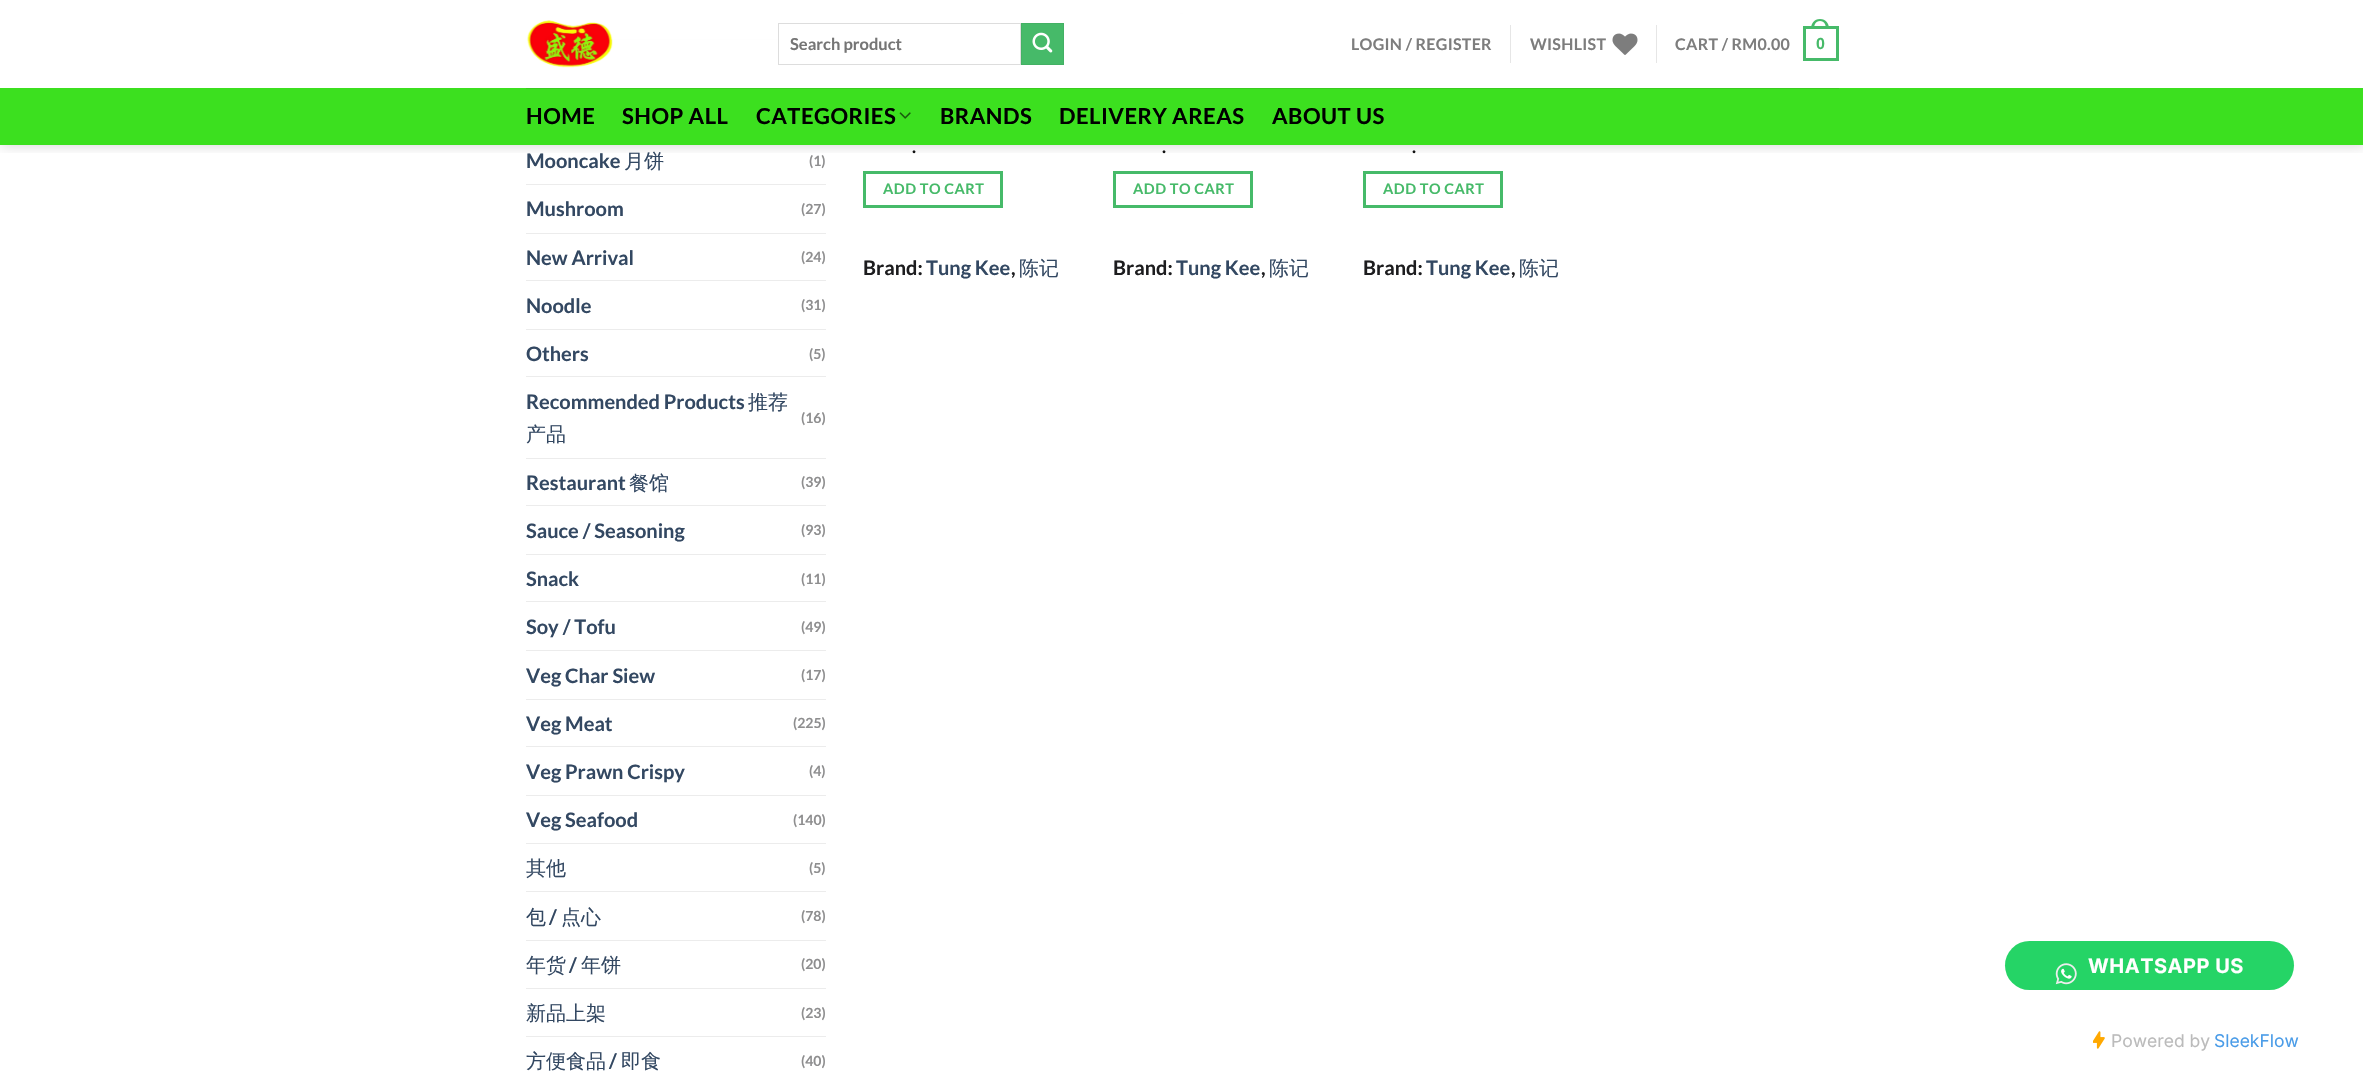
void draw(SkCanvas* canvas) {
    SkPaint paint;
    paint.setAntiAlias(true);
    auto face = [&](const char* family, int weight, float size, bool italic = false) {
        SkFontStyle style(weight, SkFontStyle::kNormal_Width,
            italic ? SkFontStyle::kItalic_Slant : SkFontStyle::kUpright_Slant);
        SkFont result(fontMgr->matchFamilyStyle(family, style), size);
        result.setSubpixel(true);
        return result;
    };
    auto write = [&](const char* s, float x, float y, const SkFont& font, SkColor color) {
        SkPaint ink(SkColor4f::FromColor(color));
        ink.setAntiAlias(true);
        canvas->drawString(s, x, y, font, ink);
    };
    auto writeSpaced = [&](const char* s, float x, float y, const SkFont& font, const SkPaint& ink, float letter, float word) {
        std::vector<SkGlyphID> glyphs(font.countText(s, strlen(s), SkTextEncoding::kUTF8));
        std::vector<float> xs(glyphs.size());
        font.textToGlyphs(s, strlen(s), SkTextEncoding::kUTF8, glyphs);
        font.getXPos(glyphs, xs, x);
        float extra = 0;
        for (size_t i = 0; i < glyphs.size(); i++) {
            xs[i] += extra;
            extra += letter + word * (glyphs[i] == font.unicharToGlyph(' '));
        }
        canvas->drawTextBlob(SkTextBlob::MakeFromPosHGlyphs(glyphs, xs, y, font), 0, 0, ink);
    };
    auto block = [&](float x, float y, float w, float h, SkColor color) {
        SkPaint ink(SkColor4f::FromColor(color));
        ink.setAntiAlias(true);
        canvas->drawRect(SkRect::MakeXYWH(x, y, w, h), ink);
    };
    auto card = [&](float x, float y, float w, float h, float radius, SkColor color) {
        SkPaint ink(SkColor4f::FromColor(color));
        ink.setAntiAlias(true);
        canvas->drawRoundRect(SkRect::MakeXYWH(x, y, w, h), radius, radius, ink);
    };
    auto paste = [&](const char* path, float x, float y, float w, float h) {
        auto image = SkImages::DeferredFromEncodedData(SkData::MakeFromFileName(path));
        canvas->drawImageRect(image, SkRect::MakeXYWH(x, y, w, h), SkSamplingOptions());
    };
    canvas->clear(SK_ColorWHITE);
    block(526, 39, 252, 1, SkColorSetRGB(236, 236, 236));
    paste("pic5.png", 1180, 12, 3, 2);
    canvas->save();
    canvas->clipRect(SkRect::MakeXYWH(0, 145, 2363, 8));
    paint.setColor(SkColorSetARGB(38, 0, 0, 0));
    paint.setMaskFilter(SkMaskFilter::MakeBlur(kNormal_SkBlurStyle, 6));
    canvas->drawRect(SkRect::MakeXYWH(1, 1, 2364, 145), paint);
    paint.setMaskFilter(nullptr);
    canvas->restore();
    block(526, 12, 657, 28, SkColorSetARGB(230, 255, 255, 255));
    paste("pic1.png", 527, 20, 86, 48);
    paint.setStyle(SkPaint::kStroke_Style);
    paint.setStrokeWidth(1);
    paint.setColor(SkColorSetRGB(221, 221, 221));
    canvas->drawRect(SkRect::MakeXYWH(778.5f, 23.5f, 242, 41), paint);
    auto kFont1 = face("Lato", 700, 16.5f);
    write("Search product", 790, 50, kFont1, SkColorSetRGB(117, 117, 117));
    paint.setStyle(SkPaint::kFill_Style);
    paint.setColor(SkColorSetRGB(70, 186, 105));
    canvas->drawRect(SkRect::MakeXYWH(1021.5f, 23.5f, 42, 41), paint);
    paint.setStyle(SkPaint::kStroke_Style);
    paint.setColor(SkColorSetRGB(67, 177, 100));
    canvas->drawRect(SkRect::MakeXYWH(1021.5f, 23.5f, 42, 41), paint);
    paste("pic2.png", 1032, 32, 21, 21);
    auto kFont2 = face("Lato", 700, 16);
    paint.setStyle(SkPaint::kFill_Style);
    paint.setColor(SkColorSetRGB(125, 125, 125));
    writeSpaced("LOGIN / REGISTER", 1351, 50, kFont2, paint, 0.3f, 0);
    block(1510, 25, 1, 38, SkColorSetRGB(230, 230, 230));
    writeSpaced("WISHLIST", 1530, 50, kFont2, paint, 0.3f, 0);
    paste("pic3.png", 1612, 33, 26, 22);
    block(1656, 25, 1, 38, SkColorSetRGB(230, 230, 230));
    writeSpaced("CART / RM0.00", 1675, 50, kFont2, paint, 0.3f, 0);
    paint.setStyle(SkPaint::kStroke_Style);
    paint.setStrokeWidth(3);
    paint.setColor(SkColorSetRGB(70, 186, 105));
    canvas->drawRect(SkRect::MakeXYWH(1804.5f, 27.5f, 33, 32), paint);
    paint.setStyle(SkPaint::kFill_Style);
    canvas->drawPath(SkPathBuilder(SkPathFillType::kEvenOdd).moveTo(1820, 19).cubicTo(1826, 19, 1829, 23.5f, 1829, 29).lineTo(1811, 29).cubicTo(1811, 23.5f, 1814, 19, 1820, 19).close().moveTo(1820, 21).cubicTo(1824.5f, 21, 1826, 25, 1826, 29).lineTo(1814, 29).cubicTo(1814, 25, 1815.5f, 21, 1820, 21).close().detach(), paint);
    auto kFont3 = face("Liberation Sans", 700, 16);
    writeSpaced("0", 1816, 49, kFont3, paint, 0.3f, 0);
    block(0, 88, 2363, 57, SkColorSetRGB(60, 224, 31));
    block(526, 88, 1313, 1, SkColorSetRGB(57, 204, 31));
    auto kFont4 = face("Lato", 700, 22);
    paint.setColor(SK_ColorBLACK);
    writeSpaced("HOME", 526, 124, kFont4, paint, 0.5f, 0);
    writeSpaced("SHOP ALL", 622, 124, kFont4, paint, 0.5f, 0);
    writeSpaced("CATEGORIES", 756, 124, kFont4, paint, 0.5f, 0);
    paste("pic4.png", 899, 112, 12, 7);
    writeSpaced("BRANDS", 940, 124, kFont4, paint, 0.5f, 0);
    writeSpaced("DELIVERY AREAS", 1059, 124, kFont4, paint, 0.5f, 0);
    writeSpaced("ABOUT US", 1272, 124, kFont4, paint, 0.5f, 0);
    auto kFont5 = face("Lato", 700, 20);
    write("Mooncake", 526, 168, kFont5, SkColorSetRGB(51, 72, 98));
    auto kFont6 = face("WenQuanYi Zen Hei", 500, 20);
    write("月饼", 624, 168, kFont6, SkColorSetRGB(51, 72, 98));
    auto kFont7 = face("Lato", 700, 14);
    write("(1)", 809, 166, kFont7, SkColorSetRGB(142, 142, 143));
    block(526, 184, 300, 1, SkColorSetRGB(236, 236, 236));
    write("Mushroom", 526, 216, kFont5, SkColorSetRGB(51, 72, 98));
    write("(27)", 801, 214, kFont7, SkColorSetRGB(142, 142, 143));
    block(526, 233, 300, 1, SkColorSetRGB(236, 236, 236));
    write("New Arrival", 526, 265, kFont5, SkColorSetRGB(51, 72, 98));
    write("(24)", 801, 262, kFont7, SkColorSetRGB(142, 142, 143));
    block(526, 280, 300, 1, SkColorSetRGB(236, 236, 236));
    write("Noodle", 526, 313, kFont5, SkColorSetRGB(51, 72, 98));
    write("(31)", 801, 310, kFont7, SkColorSetRGB(142, 142, 143));
    block(526, 329, 300, 1, SkColorSetRGB(236, 236, 236));
    write("Others", 526, 361, kFont5, SkColorSetRGB(51, 72, 98));
    write("(5)", 809, 359, kFont7, SkColorSetRGB(142, 142, 143));
    block(526, 376, 300, 1, SkColorSetRGB(236, 236, 236));
    write("Recommended Products", 526, 409, kFont5, SkColorSetRGB(51, 72, 98));
    write("推荐", 748, 409, kFont6, SkColorSetRGB(51, 72, 98));
    write("产品", 526, 441, kFont6, SkColorSetRGB(51, 72, 98));
    write("(16)", 801, 423, kFont7, SkColorSetRGB(142, 142, 143));
    block(526, 458, 300, 1, SkColorSetRGB(236, 236, 236));
    write("Restaurant", 526, 490, kFont5, SkColorSetRGB(51, 72, 98));
    write("餐馆", 629, 490, kFont6, SkColorSetRGB(51, 72, 98));
    write("(39)", 801, 487, kFont7, SkColorSetRGB(142, 142, 143));
    block(526, 505, 300, 1, SkColorSetRGB(236, 236, 236));
    write("Sauce / Seasoning", 526, 538, kFont5, SkColorSetRGB(51, 72, 98));
    write("(93)", 801, 535, kFont7, SkColorSetRGB(142, 142, 143));
    block(526, 554, 300, 1, SkColorSetRGB(236, 236, 236));
    write("Snack", 526, 586, kFont5, SkColorSetRGB(51, 72, 98));
    write("(11)", 801, 584, kFont7, SkColorSetRGB(142, 142, 143));
    block(526, 601, 300, 1, SkColorSetRGB(236, 236, 236));
    write("Soy / Tofu", 526, 634, kFont5, SkColorSetRGB(51, 72, 98));
    write("(49)", 801, 632, kFont7, SkColorSetRGB(142, 142, 143));
    block(526, 650, 300, 1, SkColorSetRGB(236, 236, 236));
    write("Veg Char Siew", 526, 683, kFont5, SkColorSetRGB(51, 72, 98));
    write("(17)", 801, 680, kFont7, SkColorSetRGB(142, 142, 143));
    block(526, 699, 300, 1, SkColorSetRGB(236, 236, 236));
    write("Veg Meat", 526, 731, kFont5, SkColorSetRGB(51, 72, 98));
    write("(225)", 793, 728, kFont7, SkColorSetRGB(142, 142, 143));
    block(526, 746, 300, 1, SkColorSetRGB(236, 236, 236));
    write("Veg Prawn Crispy", 526, 779, kFont5, SkColorSetRGB(51, 72, 98));
    write("(4)", 809, 776, kFont7, SkColorSetRGB(142, 142, 143));
    block(526, 795, 300, 1, SkColorSetRGB(236, 236, 236));
    write("Veg Seafood", 526, 827, kFont5, SkColorSetRGB(51, 72, 98));
    write("(140)", 793, 825, kFont7, SkColorSetRGB(142, 142, 143));
    block(526, 843, 300, 1, SkColorSetRGB(236, 236, 236));
    write("其他", 526, 875, kFont6, SkColorSetRGB(51, 72, 98));
    write("(5)", 809, 873, kFont7, SkColorSetRGB(142, 142, 143));
    block(526, 891, 300, 1, SkColorSetRGB(236, 236, 236));
    write("包", 526, 924, kFont6, SkColorSetRGB(51, 72, 98));
    write("/", 549, 924, kFont5, SkColorSetRGB(51, 72, 98));
    write("点心", 561, 924, kFont6, SkColorSetRGB(51, 72, 98));
    write("(78)", 801, 921, kFont7, SkColorSetRGB(142, 142, 143));
    block(526, 940, 300, 1, SkColorSetRGB(236, 236, 236));
    write("年货", 526, 972, kFont6, SkColorSetRGB(51, 72, 98));
    write("/", 569, 972, kFont5, SkColorSetRGB(51, 72, 98));
    write("年饼", 581, 972, kFont6, SkColorSetRGB(51, 72, 98));
    write("(20)", 801, 969, kFont7, SkColorSetRGB(142, 142, 143));
    block(526, 988, 300, 1, SkColorSetRGB(236, 236, 236));
    write("新品上架", 526, 1020, kFont6, SkColorSetRGB(51, 72, 98));
    write("(23)", 801, 1018, kFont7, SkColorSetRGB(142, 142, 143));
    block(526, 1036, 300, 1, SkColorSetRGB(236, 236, 236));
    write("方便食品", 526, 1068, kFont6, SkColorSetRGB(51, 72, 98));
    write("/", 609, 1068, kFont5, SkColorSetRGB(51, 72, 98));
    write("即食", 621, 1068, kFont6, SkColorSetRGB(51, 72, 98));
    write("(40)", 801, 1066, kFont7, SkColorSetRGB(142, 142, 143));
    auto kFont8 = face("Lato", 700, 18);
    write(".", 912, 153, kFont8, SkColorSetRGB(17, 17, 17));
    paint.setStyle(SkPaint::kStroke_Style);
    paint.setColor(SkColorSetRGB(70, 186, 105));
    canvas->drawRect(SkRect::MakeXYWH(864.5f, 172.5f, 137, 34), paint);
    auto kFont9 = face("Lato", 700, 14.5f);
    paint.setStyle(SkPaint::kFill_Style);
    writeSpaced("ADD TO CART", 883, 194, kFont9, paint, 0.5f, 0);
    write("Brand:", 863, 275, kFont5, SkColorSetRGB(29, 29, 31));
    write("Tung Kee", 926, 275, kFont5, SkColorSetRGB(51, 72, 98));
    write(",", 1011, 275, kFont5, SkColorSetRGB(29, 29, 31));
    write("陈记", 1019, 275, kFont6, SkColorSetRGB(51, 72, 98));
    write(".", 1162, 153, kFont8, SkColorSetRGB(17, 17, 17));
    paint.setStyle(SkPaint::kStroke_Style);
    canvas->drawRect(SkRect::MakeXYWH(1114.5f, 172.5f, 137, 34), paint);
    paint.setStyle(SkPaint::kFill_Style);
    writeSpaced("ADD TO CART", 1133, 194, kFont9, paint, 0.5f, 0);
    write("Brand:", 1113, 275, kFont5, SkColorSetRGB(29, 29, 31));
    write("Tung Kee", 1176, 275, kFont5, SkColorSetRGB(51, 72, 98));
    write(",", 1261, 275, kFont5, SkColorSetRGB(29, 29, 31));
    write("陈记", 1269, 275, kFont6, SkColorSetRGB(51, 72, 98));
    write(".", 1412, 153, kFont8, SkColorSetRGB(17, 17, 17));
    paint.setStyle(SkPaint::kStroke_Style);
    canvas->drawRect(SkRect::MakeXYWH(1364.5f, 172.5f, 137, 34), paint);
    paint.setStyle(SkPaint::kFill_Style);
    writeSpaced("ADD TO CART", 1383, 194, kFont9, paint, 0.5f, 0);
    write("Brand:", 1363, 275, kFont5, SkColorSetRGB(29, 29, 31));
    write("Tung Kee", 1426, 275, kFont5, SkColorSetRGB(51, 72, 98));
    write(",", 1511, 275, kFont5, SkColorSetRGB(29, 29, 31));
    write("陈记", 1519, 275, kFont6, SkColorSetRGB(51, 72, 98));
    card(2005, 941, 289, 49, 24.5f, SkColorSetRGB(37, 212, 102));
    paste("pic6.png", 2055, 963, 22, 22);
    auto kFont10 = face("Inter", 700, 20);
    paint.setColor(SK_ColorWHITE);
    writeSpaced("WHATSAPP US", 2088, 973, kFont10, paint, 0.5f, 0);
    paste("pic7.png", 2093, 1031, 12, 18);
    auto kFont11 = face("Inter", 400, 17.5f);
    write("SleekFlow", 2214, 1047, kFont11, SkColorSetRGB(74, 156, 232));
    write("Powered by", 2111, 1047, kFont11, SkColorSetRGB(187, 187, 187));
}
